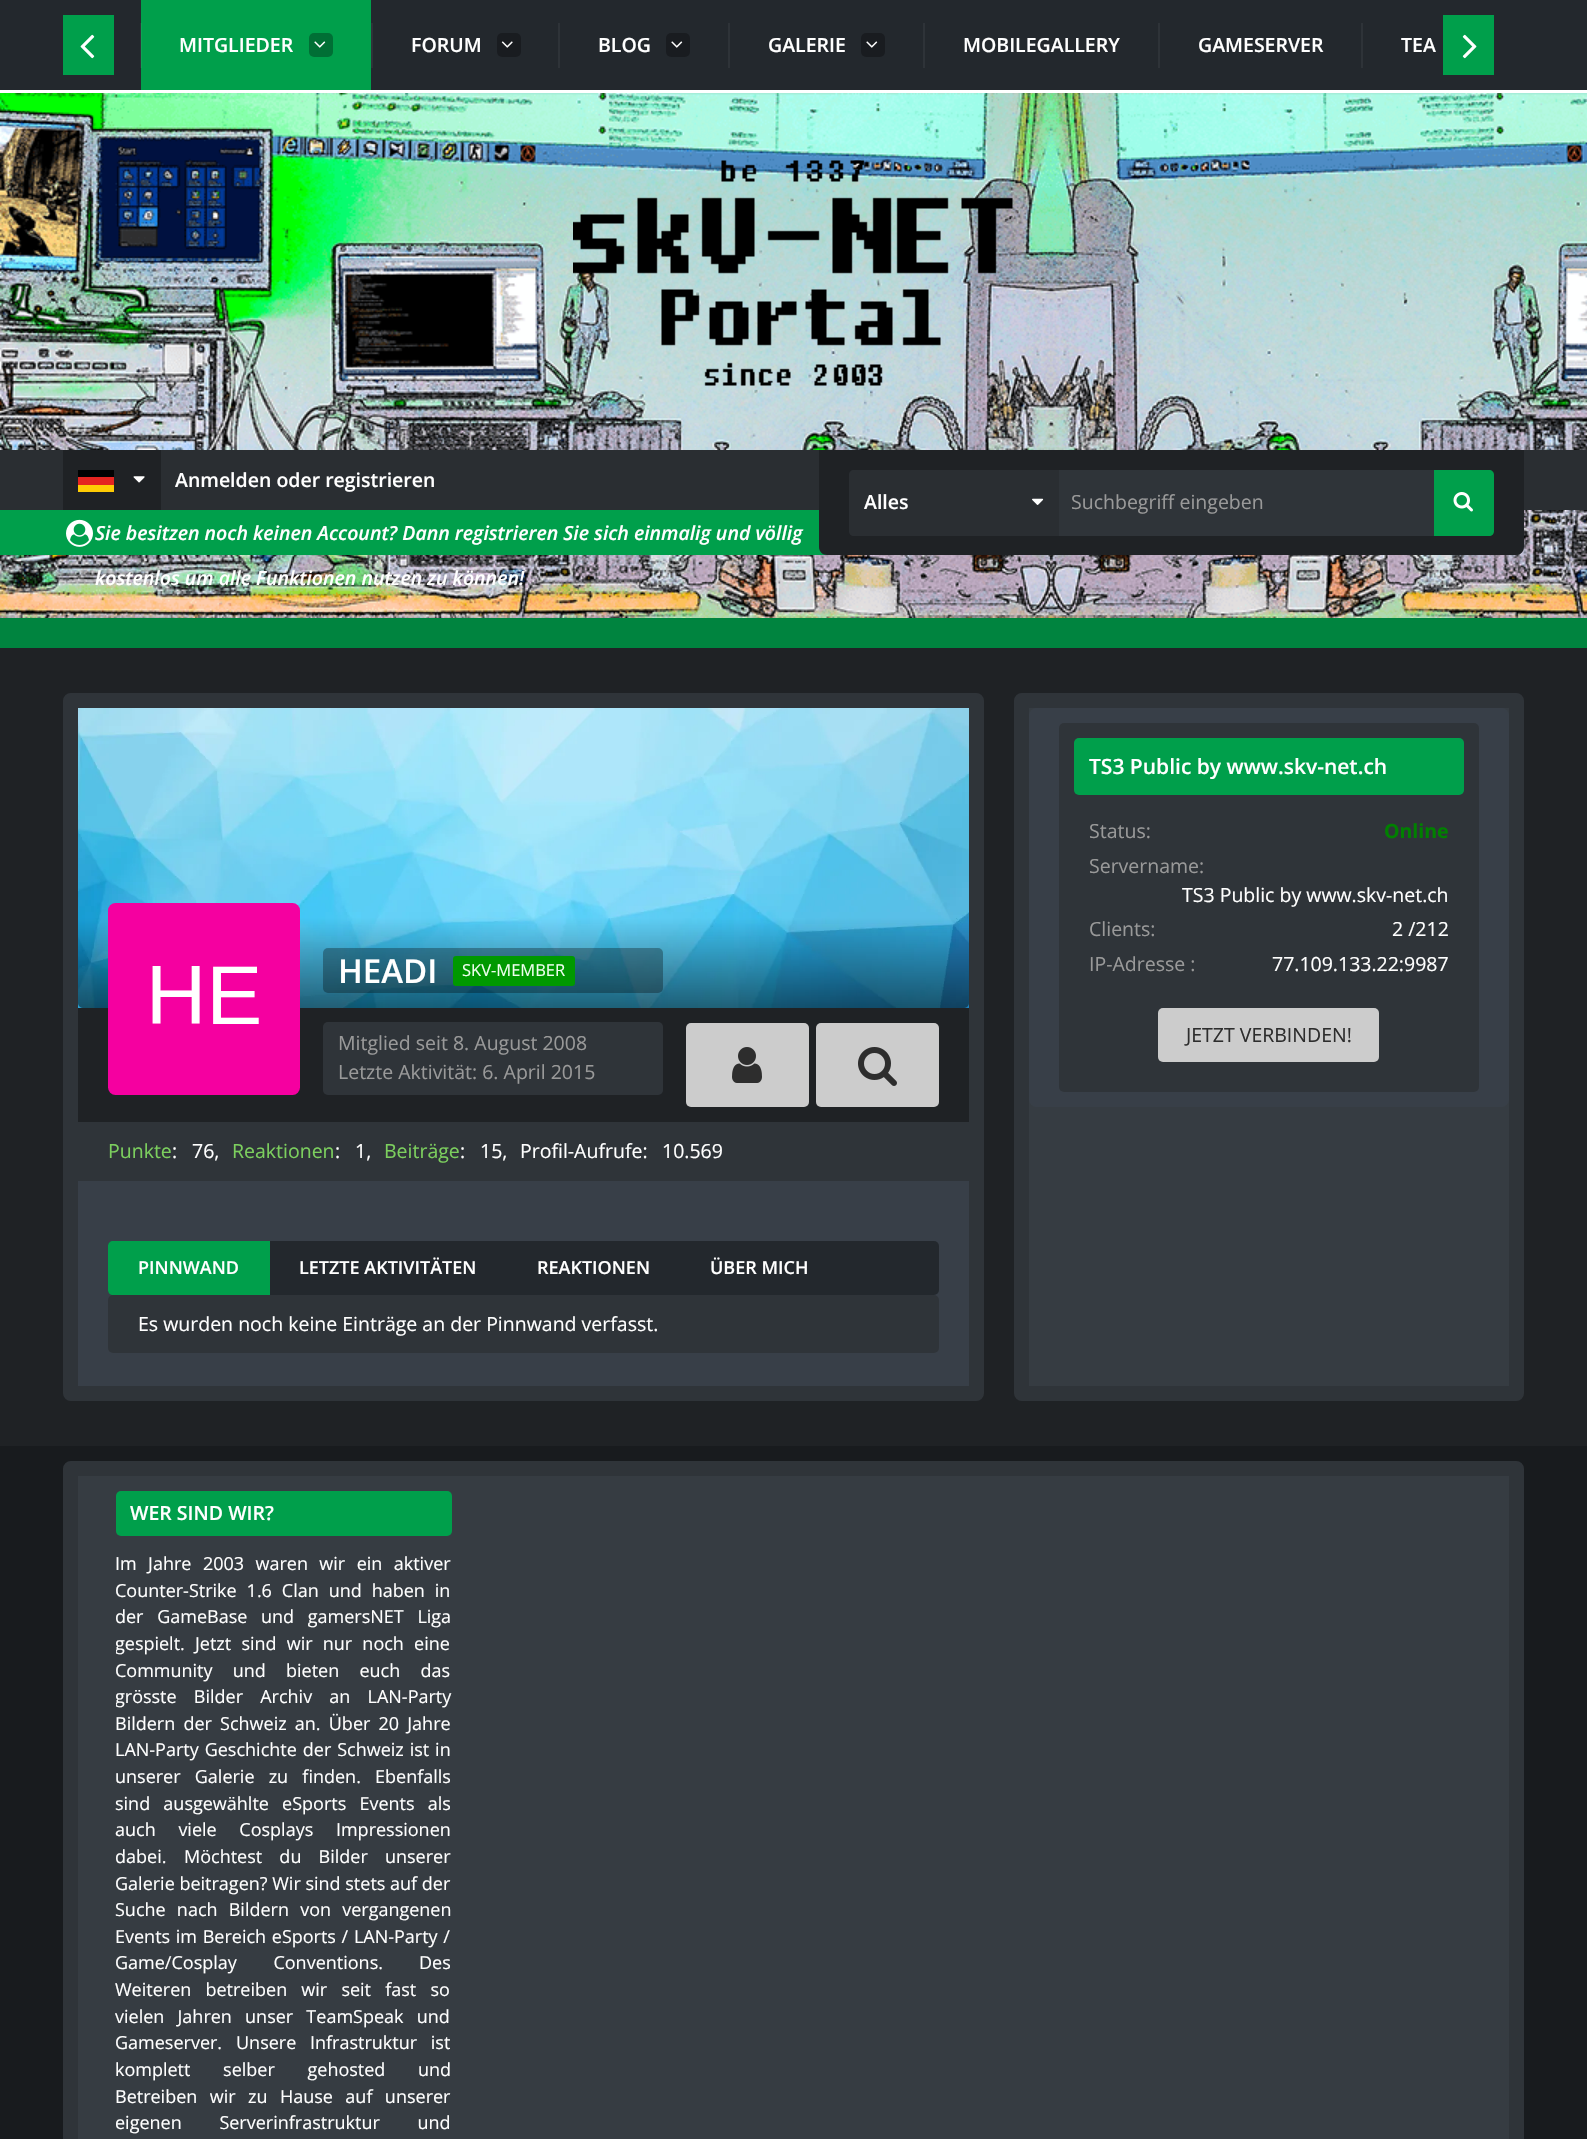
void draw(SkCanvas* canvas) {
    SkPaint paint;
    paint.setAntiAlias(true);
    auto face = [&](const char* family, int weight, float size, bool italic = false) {
        SkFontStyle style(weight, SkFontStyle::kNormal_Width,
            italic ? SkFontStyle::kItalic_Slant : SkFontStyle::kUpright_Slant);
        SkFont result(fontMgr->matchFamilyStyle(family, style), size);
        result.setSubpixel(true);
        return result;
    };
    auto write = [&](const char* s, float x, float y, const SkFont& font, SkColor color) {
        SkPaint ink(SkColor4f::FromColor(color));
        ink.setAntiAlias(true);
        canvas->drawString(s, x, y, font, ink);
    };
    auto writeSpaced = [&](const char* s, float x, float y, const SkFont& font, const SkPaint& ink, float letter, float word) {
        std::vector<SkGlyphID> glyphs(font.countText(s, strlen(s), SkTextEncoding::kUTF8));
        std::vector<float> xs(glyphs.size());
        font.textToGlyphs(s, strlen(s), SkTextEncoding::kUTF8, glyphs);
        font.getXPos(glyphs, xs, x);
        float extra = 0;
        for (size_t i = 0; i < glyphs.size(); i++) {
            xs[i] += extra;
            extra += letter + word * (glyphs[i] == font.unicharToGlyph(' '));
        }
        canvas->drawTextBlob(SkTextBlob::MakeFromPosHGlyphs(glyphs, xs, y, font), 0, 0, ink);
    };
    auto block = [&](float x, float y, float w, float h, SkColor color) {
        SkPaint ink(SkColor4f::FromColor(color));
        ink.setAntiAlias(true);
        canvas->drawRect(SkRect::MakeXYWH(x, y, w, h), ink);
    };
    auto card = [&](float x, float y, float w, float h, float radius, SkColor color) {
        SkPaint ink(SkColor4f::FromColor(color));
        ink.setAntiAlias(true);
        canvas->drawRoundRect(SkRect::MakeXYWH(x, y, w, h), radius, radius, ink);
    };
    auto paste = [&](const char* path, float x, float y, float w, float h) {
        auto image = SkImages::DeferredFromEncodedData(SkData::MakeFromFileName(path));
        canvas->drawImageRect(image, SkRect::MakeXYWH(x, y, w, h), SkSamplingOptions());
    };
    canvas->clear(SkColorSetRGB(31, 34, 37));
    block(0, 0, 1587, 90, SkColorSetRGB(35, 40, 45));
    block(140, 23, 1, 45, SkColorSetRGB(46, 51, 56));
    block(0, 90, 1587, 3, SK_ColorWHITE);
    block(63, 15, 51, 60, SkColorSetRGB(0, 159, 75));
    paste("pic1.png", 80, 34, 15, 25);
    block(141, 0, 230, 90, SkColorSetRGB(0, 159, 75));
    block(141, 23, 1, 45, SkColorSetRGB(13, 164, 84));
    auto kFont1 = face("Open Sans", 600, 19.5f);
    write("MITGLIEDER", 179, 52, kFont1, SK_ColorWHITE);
    card(309, 33, 24, 24, 5, SkColorSetRGB(0, 111, 53));
    paste("pic2.png", 314, 41, 12, 7);
    block(371, 23, 2, 45, SkColorSetRGB(46, 51, 56));
    write("FORUM", 411, 52, kFont1, SK_ColorWHITE);
    card(497, 33, 24, 24, 5, SkColorSetRGB(25, 28, 32));
    paste("pic3.png", 501, 41, 12, 7);
    block(558, 23, 2, 45, SkColorSetRGB(46, 51, 56));
    write("BLOG", 598, 52, kFont1, SK_ColorWHITE);
    card(666, 33, 24, 24, 5, SkColorSetRGB(25, 28, 32));
    paste("pic4.png", 671, 41, 12, 7);
    block(728, 23, 2, 45, SkColorSetRGB(46, 51, 56));
    write("GALERIE", 768, 52, kFont1, SK_ColorWHITE);
    card(861, 33, 24, 24, 5, SkColorSetRGB(25, 28, 32));
    paste("pic4.png", 866, 41, 12, 7);
    block(923, 23, 2, 45, SkColorSetRGB(46, 51, 56));
    write("MOBILEGALLERY", 963, 52, kFont1, SK_ColorWHITE);
    block(1158, 23, 2, 45, SkColorSetRGB(46, 51, 56));
    write("GAMESERVER", 1198, 52, kFont1, SK_ColorWHITE);
    block(1361, 23, 2, 45, SkColorSetRGB(46, 51, 56));
    write("TEA", 1401, 52, kFont1, SK_ColorWHITE);
    block(1443, 15, 51, 60, SkColorSetRGB(0, 159, 75));
    paste("pic5.png", 1462, 34, 15, 25);
    paste("pic6.png", 0, 93, 1587, 525);
    paste("pic7.png", 573, 160, 440, 226);
    block(0, 450, 1587, 60, SkColorSetRGB(42, 46, 50));
    block(63, 450, 98, 60, SkColorSetRGB(31, 34, 37));
    block(78, 470, 36, 7, SkColorSetRGB(1, 2, 2));
    block(78, 485, 36, 7, SkColorSetRGB(255, 204, 4));
    block(78, 477, 36, 8, SkColorSetRGB(229, 36, 32));
    paste("pic8.png", 133, 476, 12, 7);
    write("Anmelden oder registrieren", 175, 487, kFont1, SK_ColorWHITE);
    block(0, 510, 827, 45, SkColorSetRGB(0, 159, 75));
    paint.setColor(SkColorSetRGB(31, 34, 37));
    canvas->drawPath(SkPathBuilder().moveTo(819, 450).lineTo(1524, 450).lineTo(1524, 547).cubicTo(1524, 551.5f, 1520.5f, 555, 1516, 555).lineTo(827, 555).cubicTo(822.5f, 555, 819, 551.5f, 819, 547).close().detach(), paint);
    paint.setColor(SkColorSetRGB(42, 46, 50));
    canvas->drawPath(SkPathBuilder().moveTo(854, 470).lineTo(1059, 470).lineTo(1059, 536).lineTo(854, 536).cubicTo(851, 536, 849, 534, 849, 531).lineTo(849, 475).cubicTo(849, 472, 851, 470, 854, 470).close().detach(), paint);
    write("Alles", 864, 509, kFont1, SK_ColorWHITE);
    paste("pic9.png", 1032, 498, 12, 7);
    block(1059, 470, 375, 66, SkColorSetRGB(47, 52, 57));
    auto kFont2 = face("Open Sans", 400, 19.5f);
    write("Suchbegriff eingeben", 1071, 509, kFont2, SkColorSetRGB(153, 153, 153));
    paint.setColor(SkColorSetRGB(0, 159, 75));
    canvas->drawPath(SkPathBuilder().moveTo(1434, 470).lineTo(1489, 470).cubicTo(1492, 470, 1494, 472, 1494, 475).lineTo(1494, 531).cubicTo(1494, 534, 1492, 536, 1489, 536).lineTo(1434, 536).close().detach(), paint);
    paste("pic10.png", 1453, 492, 20, 20);
    paste("pic11.png", 66, 519, 27, 28);
    auto kFont3 = face("Open Sans", 600, 19.5f, true);
    write("Sie besitzen noch keinen Account? Dann registrieren Sie sich einmalig und völlig", 95, 540, kFont3, SK_ColorWHITE);
    write("kostenlos um alle Funktionen nutzen zu können!", 95, 585, kFont3, SK_ColorWHITE);
    block(0, 618, 1587, 30, SkColorSetRGB(0, 132, 63));
    paint.setColor(SkColorSetRGB(54, 60, 66));
    canvas->drawRoundRect(SkRect::MakeXYWH(1021.5f, 700.5f, 495, 693), 0.5f, 0.5f, paint);
    paint.setStyle(SkPaint::kStroke_Style);
    paint.setStrokeWidth(15);
    paint.setColor(SkColorSetRGB(47, 52, 57));
    canvas->drawRoundRect(SkRect::MakeXYWH(1021.5f, 700.5f, 495, 693), 0.5f, 0.5f, paint);
    card(1029, 708, 480, 399, 8, SkColorSetRGB(56, 63, 72));
    card(1059, 723, 420, 369, 5, SkColorSetRGB(47, 52, 57));
    card(1074, 738, 390, 57, 5, SkColorSetRGB(0, 159, 75));
    auto kFont4 = face("Open Sans", 600, 21);
    write("TS3 Public by www.skv-net.ch", 1089, 774, kFont4, SK_ColorWHITE);
    write("Status:", 1089, 838, kFont2, SkColorSetRGB(153, 153, 153));
    auto kFont5 = face("Open Sans", 700, 19.5f);
    write("Online", 1384, 838, kFont5, SkColorSetRGB(0, 128, 0));
    write("Servername:", 1089, 873, kFont2, SkColorSetRGB(153, 153, 153));
    write("TS3 Public by www.skv-net.ch", 1182, 902, kFont2, SK_ColorWHITE);
    write("Clients:", 1089, 936, kFont2, SkColorSetRGB(153, 153, 153));
    write("2 /212", 1392, 936, kFont2, SK_ColorWHITE);
    write("IP-Adresse :", 1089, 971, kFont2, SkColorSetRGB(153, 153, 153));
    write("77.109.133.22:9987", 1272, 971, kFont2, SK_ColorWHITE);
    card(1158, 1008, 221, 54, 5, SkColorSetRGB(204, 204, 204));
    write("JETZT VERBINDEN!", 1186, 1042, kFont2, SkColorSetRGB(45, 45, 45));
    paint.setStyle(SkPaint::kFill_Style);
    paint.setColor(SkColorSetRGB(56, 63, 72));
    canvas->drawRoundRect(SkRect::MakeXYWH(70.5f, 700.5f, 906, 693), 0.5f, 0.5f, paint);
    paint.setStyle(SkPaint::kStroke_Style);
    paint.setColor(SkColorSetRGB(47, 52, 57));
    canvas->drawRoundRect(SkRect::MakeXYWH(70.5f, 700.5f, 906, 693), 0.5f, 0.5f, paint);
    block(78, 1008, 891, 114, SkColorSetRGB(31, 34, 37));
    paste("pic12.png", 78, 708, 891, 300);
    paste("pic13.png", 108, 903, 192, 192);
    card(323, 948, 340, 45, 5, SkColorSetARGB(77, 0, 0, 0));
    auto kFont6 = face("Open Sans", 600, 33);
    write("HEADI", 338, 983, kFont6, SK_ColorWHITE);
    card(453, 956, 122, 30, 3, SkColorSetRGB(0, 153, 0));
    auto kFont7 = face("Open Sans", 400, 16.5f);
    write("SKV-MEMBER", 462, 976, kFont7, SkColorSetRGB(238, 255, 238));
    card(323, 1022, 340, 73, 5, SkColorSetRGB(47, 52, 57));
    write("Mitglied seit 8. August 2008", 338, 1050, kFont2, SkColorSetRGB(153, 153, 153));
    write("Letzte Aktivität: 6. April 2015", 338, 1079, kFont2, SkColorSetRGB(153, 153, 153));
    card(686, 1023, 123, 84, 5, SkColorSetRGB(204, 204, 204));
    paste("pic14.png", 732, 1047, 30, 36);
    card(816, 1023, 123, 84, 5, SkColorSetRGB(204, 204, 204));
    paste("pic15.png", 858, 1047, 39, 39);
    block(78, 1122, 891, 59, SkColorSetRGB(47, 52, 57));
    write("Punkte", 108, 1158, kFont2, SkColorSetRGB(124, 207, 94));
    write(":", 172, 1158, kFont2, SK_ColorWHITE);
    write("76,", 192, 1158, kFont2, SK_ColorWHITE);
    write("Reaktionen", 232, 1158, kFont2, SkColorSetRGB(124, 207, 94));
    write(":", 335, 1158, kFont2, SK_ColorWHITE);
    write("1,", 355, 1158, kFont2, SK_ColorWHITE);
    write("Beiträge", 384, 1158, kFont2, SkColorSetRGB(124, 207, 94));
    write(":", 460, 1158, kFont2, SK_ColorWHITE);
    write("15,", 480, 1158, kFont2, SK_ColorWHITE);
    write("Profil-Aufrufe:", 520, 1158, kFont2, SK_ColorWHITE);
    write("10.569", 662, 1158, kFont2, SK_ColorWHITE);
    card(108, 1241, 831, 54, 5, SkColorSetRGB(35, 40, 45));
    paint.setStyle(SkPaint::kFill_Style);
    paint.setColor(SkColorSetRGB(0, 159, 75));
    canvas->drawPath(SkPathBuilder().moveTo(113, 1241).lineTo(270, 1241).lineTo(270, 1295).lineTo(113, 1295).cubicTo(110, 1295, 108, 1293, 108, 1290).lineTo(108, 1246).cubicTo(108, 1243, 110, 1241, 113, 1241).close().detach(), paint);
    auto kFont8 = face("Open Sans", 600, 18);
    write("PINNWAND", 138, 1274, kFont8, SK_ColorWHITE);
    write("LETZTE AKTIVITÄTEN", 299, 1274, kFont8, SK_ColorWHITE);
    write("REAKTIONEN", 537, 1274, kFont8, SK_ColorWHITE);
    write("ÜBER MICH", 710, 1274, kFont8, SK_ColorWHITE);
    card(108, 1295, 831, 58, 5, SkColorSetRGB(47, 52, 57));
    write("Es wurden noch keine Einträge an der Pinnwand verfasst.", 138, 1331, kFont2, SK_ColorWHITE);
    block(0, 1446, 1587, 693, SkColorSetRGB(24, 27, 30));
    paint.setColor(SkColorSetRGB(54, 60, 66));
    canvas->drawRoundRect(SkRect::MakeXYWH(70.5f, 1468.5f, 1446, 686), 0.5f, 0.5f, paint);
    paint.setStyle(SkPaint::kStroke_Style);
    paint.setColor(SkColorSetRGB(47, 52, 57));
    canvas->drawRoundRect(SkRect::MakeXYWH(70.5f, 1468.5f, 1446, 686), 0.5f, 0.5f, paint);
    card(116, 1491, 336, 45, 5, SkColorSetRGB(0, 159, 75));
    write("WER SIND WIR?", 130, 1520, kFont1, SK_ColorWHITE);
    auto kFont9 = face("Open Sans", 400, 18);
    paint.setStyle(SkPaint::kFill_Style);
    paint.setColor(SK_ColorWHITE);
    writeSpaced("Im Jahre 2003 waren wir ein aktiver", 115, 1570, kFont9, paint, 0, 6.75f);
    writeSpaced("Counter-Strike 1.6 Clan und haben in", 115, 1597, kFont9, paint, 0, 5.25f);
    writeSpaced("der GameBase und gamersNET Liga", 115, 1623, kFont9, paint, 0, 9);
    canvas->save();
    canvas->clipRect(SkRect::MakeXYWH(116, 1491, 336, 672));
    write("gespielt.", 115, 1650, kFont9, SK_ColorWHITE);
    canvas->restore();
    writeSpaced("Jetzt sind wir nur noch eine", 195, 1650, kFont9, paint, 0, 5.5f);
    writeSpaced("Community und bieten euch das", 115, 1677, kFont9, paint, 0, 15.5f);
    canvas->save();
    canvas->clipRect(SkRect::MakeXYWH(116, 1491, 336, 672));
    writeSpaced("grösste Bilder Archiv an LAN-Party", 115, 1703, kFont9, paint, 0, 12.5f);
    canvas->restore();
    writeSpaced("Bildern der Schweiz an. Über 20 Jahre", 115, 1730, kFont9, paint, 0, 3.5f);
    writeSpaced("LAN-Party Geschichte der Schweiz ist in", 115, 1756, kFont9, paint, 0, 1.25f);
    writeSpaced("unserer Galerie zu finden. Ebenfalls", 115, 1783, kFont9, paint, 0, 9.5f);
    writeSpaced("sind ausgewählte eSports Events als", 115, 1810, kFont9, paint, 0, 8.5f);
    writeSpaced("auch viele Cosplays Impressionen", 115, 1836, kFont9, paint, 0, 18);
    write("dabei.", 115, 1863, kFont9, SK_ColorWHITE);
    writeSpaced("Möchtest du Bilder unserer", 184, 1863, kFont9, paint, 0, 12.5f);
    write("Galerie beitragen? Wir sind stets auf der", 115, 1890, kFont9, SK_ColorWHITE);
    writeSpaced("Suche nach Bildern von vergangenen", 115, 1916, kFont9, paint, 0, 6.5f);
    writeSpaced("Events im Bereich eSports / LAN-Party /", 115, 1943, kFont9, paint, 0, 1);
    writeSpaced("Game/Cosplay Conventions.", 115, 1969, kFont9, paint, 0, 32);
    write("Des", 419, 1969, kFont9, SK_ColorWHITE);
    writeSpaced("Weiteren betreiben wir seit fast so", 115, 1996, kFont9, paint, 0, 9.5f);
    writeSpaced("vielen Jahren unser TeamSpeak und", 115, 2023, kFont9, paint, 0, 8.5f);
    write("Gameserver.", 115, 2049, kFont9, SK_ColorWHITE);
    writeSpaced("Unsere Infrastruktur ist", 236, 2049, kFont9, paint, 0, 9);
    writeSpaced("komplett selber gehosted und", 115, 2076, kFont9, paint, 0, 28);
    writeSpaced("Betreiben wir zu Hause auf unserer", 115, 2103, kFont9, paint, 0, 7.75f);
    writeSpaced("eigenen Serverinfrastruktur und", 115, 2129, kFont9, paint, 0, 33);
}
